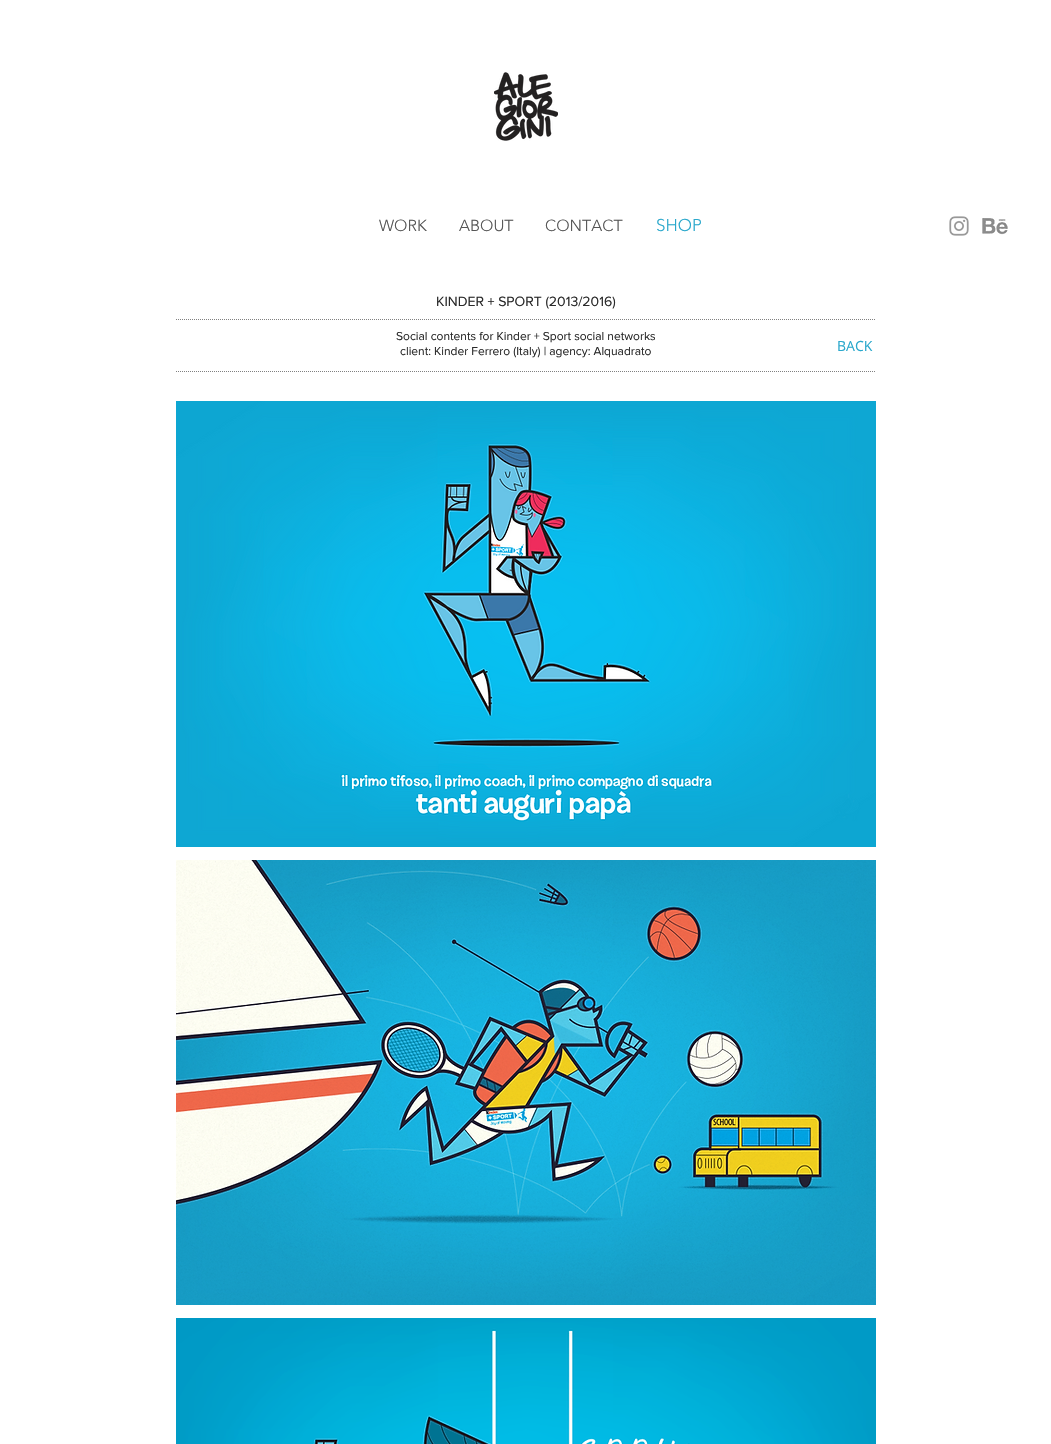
void draw(SkCanvas* canvas) {
    SkPaint paint;
    paint.setAntiAlias(true);
    auto face = [&](const char* family, int weight, float size, bool italic = false) {
        SkFontStyle style(weight, SkFontStyle::kNormal_Width,
            italic ? SkFontStyle::kItalic_Slant : SkFontStyle::kUpright_Slant);
        SkFont result(fontMgr->matchFamilyStyle(family, style), size);
        result.setSubpixel(true);
        return result;
    };
    auto write = [&](const char* s, float x, float y, const SkFont& font, SkColor color) {
        SkPaint ink(SkColor4f::FromColor(color));
        ink.setAntiAlias(true);
        canvas->drawString(s, x, y, font, ink);
    };
    auto paste = [&](const char* path, float x, float y, float w, float h) {
        auto image = SkImages::DeferredFromEncodedData(SkData::MakeFromFileName(path));
        canvas->drawImageRect(image, SkRect::MakeXYWH(x, y, w, h), SkSamplingOptions());
    };
    canvas->clear(SK_ColorWHITE);
    paste("pic1.png", 494, 72, 64, 69);
    auto kFont1 = face("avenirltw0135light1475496", 300, 16);
    write("WORK", 379, 231, kFont1, SkColorSetRGB(85, 85, 85));
    write("ABOUT", 459, 231, kFont1, SkColorSetRGB(85, 85, 85));
    write("CONTACT", 545, 231, kFont1, SkColorSetRGB(85, 85, 85));
    auto kFont2 = face("avenirltw0135light1475496", 300, 17);
    write("SHOP", 656, 231, kFont2, SkColorSetRGB(42, 168, 204));
    paste("pic2.png", 949, 216, 20, 20);
    paste("pic3.png", 982, 218, 26, 17);
    auto kFont3 = face("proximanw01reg", 400, 14);
    write("KINDER + SPORT (2013/2016)", 436, 306, kFont3, SkColorSetRGB(42, 42, 42));
    paint.setStyle(SkPaint::kStroke_Style);
    paint.setStrokeWidth(1);
    paint.setColor(SkColorSetRGB(128, 128, 128));
    paint.setPathEffect(SkDashPathEffect::Make({{1, 1}}, 0));
    canvas->drawPath(SkPathBuilder().moveTo(176, 319.5f).lineTo(876, 319.5f).detach(), paint);
    paint.setPathEffect(nullptr);
    auto kFont4 = face("proximanw01reg", 400, 12);
    write("Social contents for Kinder + Sport social networks", 396, 340, kFont4, SkColorSetRGB(42, 42, 42));
    write("client: Kinder Ferrero (Italy) | agency: Alquadrato", 400, 355, kFont4, SkColorSetRGB(42, 42, 42));
    auto kFont5 = face("Open Sans", 400, 14);
    write("BACK", 837, 351, kFont5, SkColorSetRGB(42, 168, 204));
    paint.setPathEffect(SkDashPathEffect::Make({{1, 1}}, 0));
    canvas->drawPath(SkPathBuilder().moveTo(176, 371.5f).lineTo(876, 371.5f).detach(), paint);
    paint.setPathEffect(nullptr);
    paste("pic4.png", 176, 401, 700, 446);
    paste("pic5.png", 176, 860, 700, 445);
    paste("pic6.png", 176, 1318, 700, 126);
}
